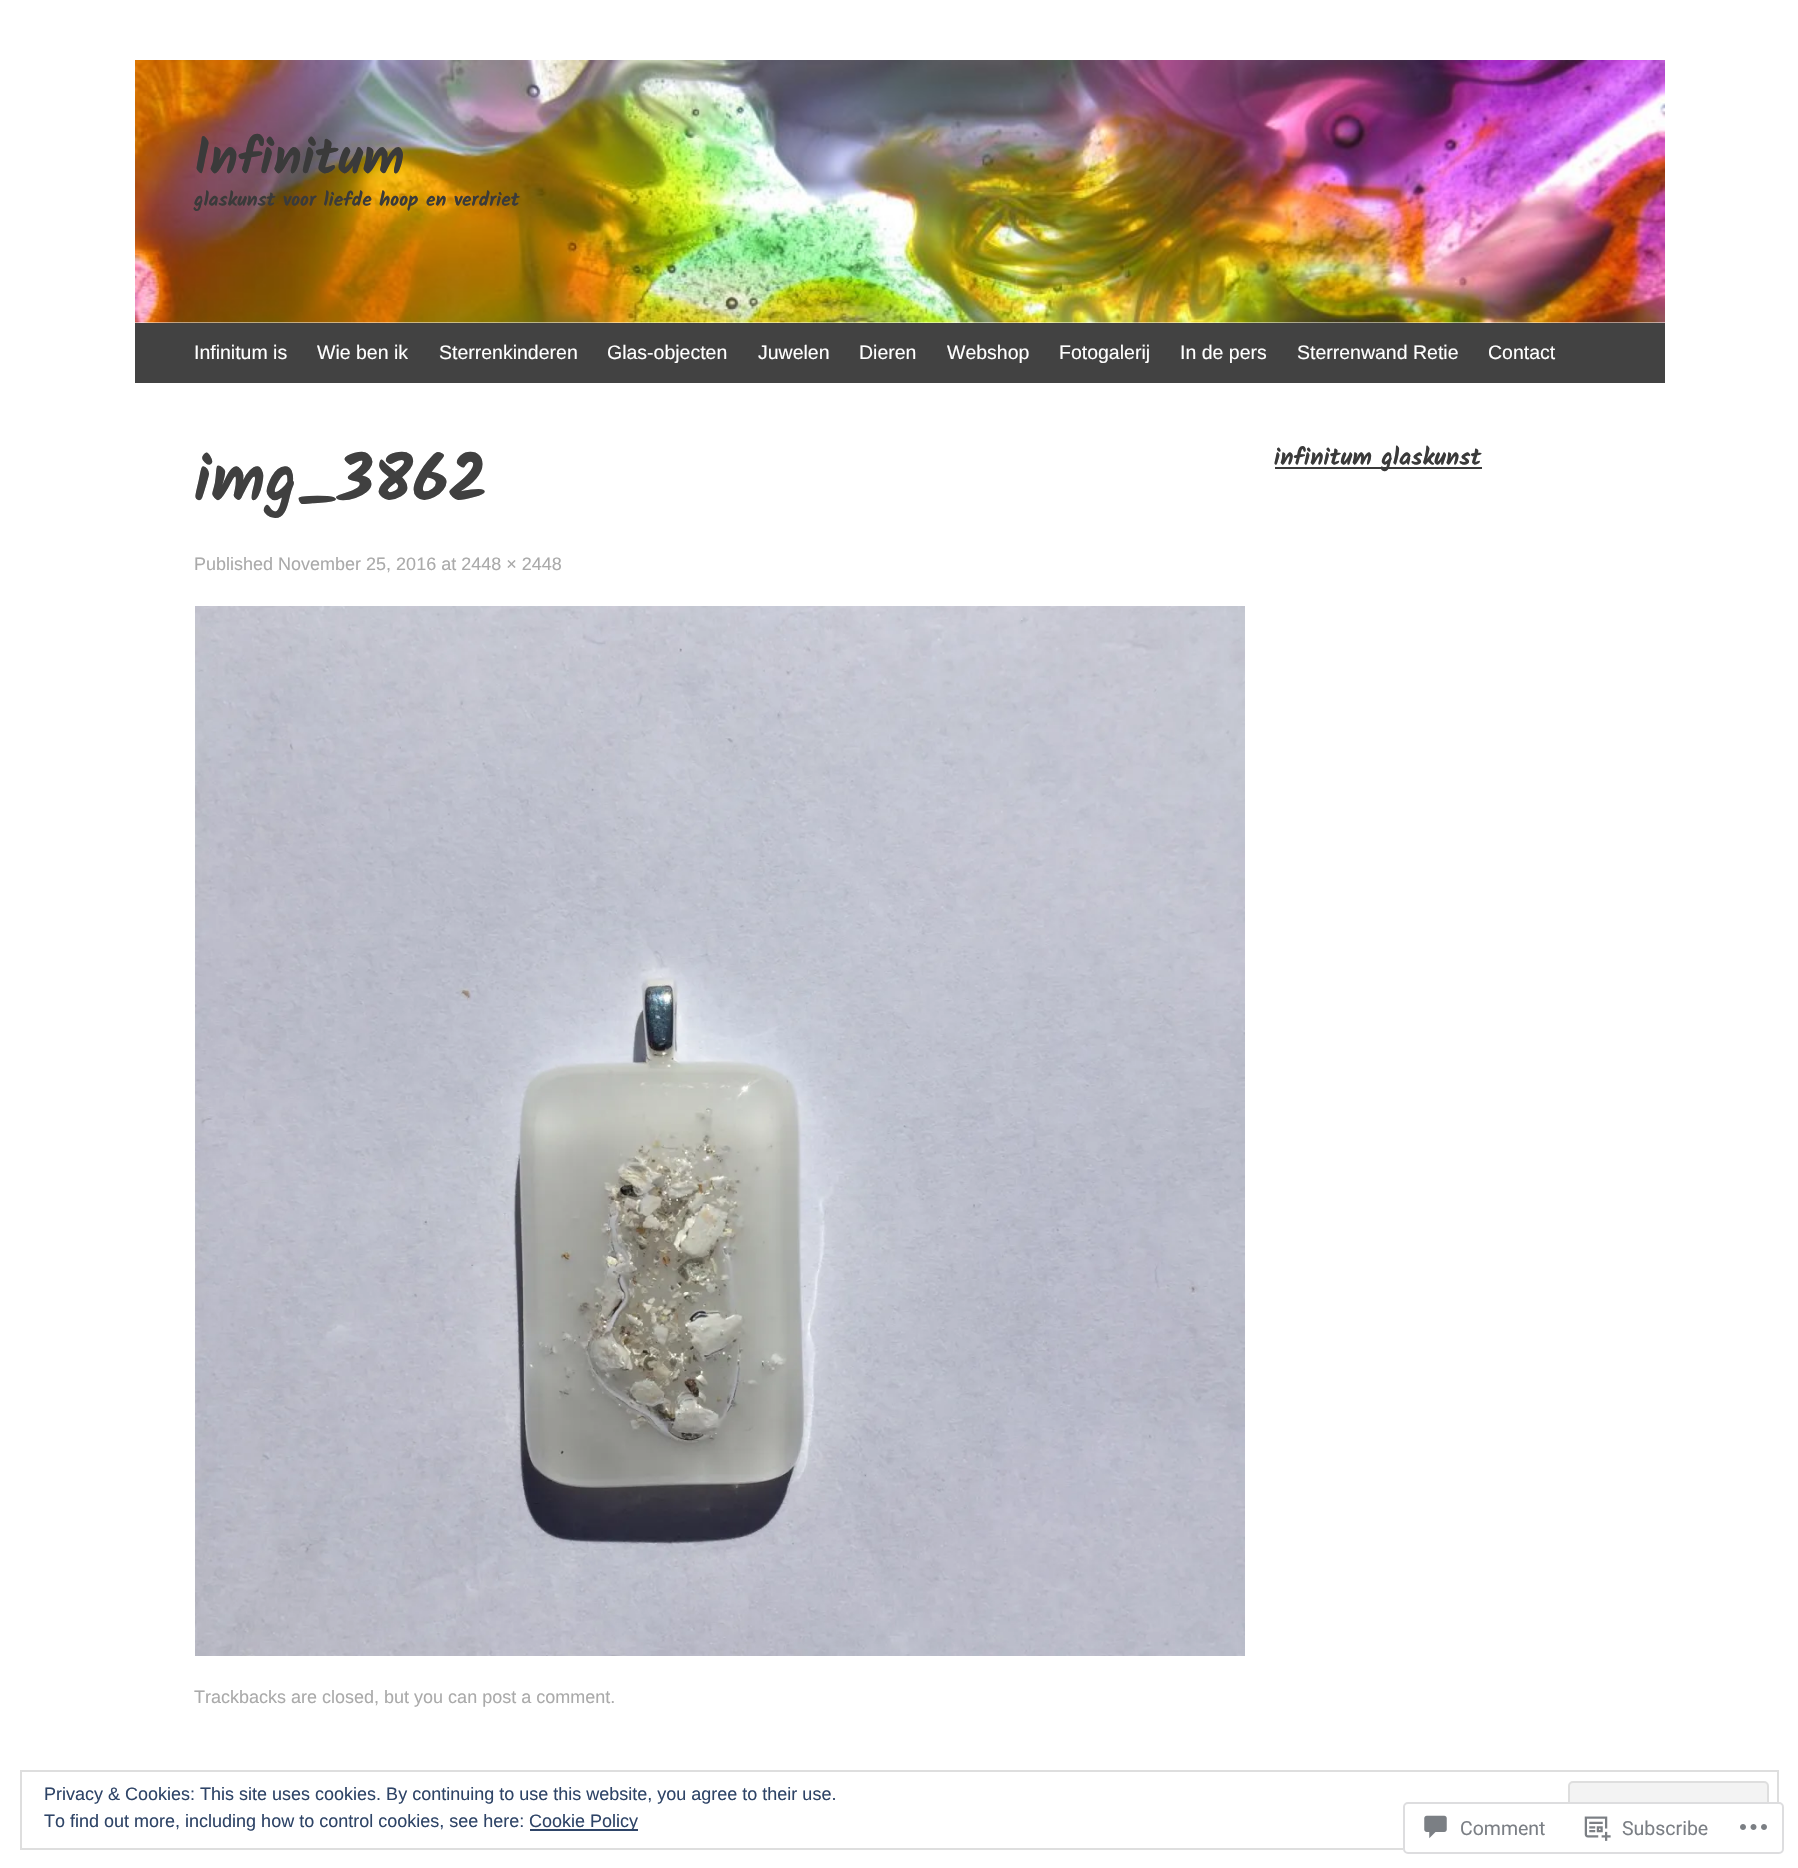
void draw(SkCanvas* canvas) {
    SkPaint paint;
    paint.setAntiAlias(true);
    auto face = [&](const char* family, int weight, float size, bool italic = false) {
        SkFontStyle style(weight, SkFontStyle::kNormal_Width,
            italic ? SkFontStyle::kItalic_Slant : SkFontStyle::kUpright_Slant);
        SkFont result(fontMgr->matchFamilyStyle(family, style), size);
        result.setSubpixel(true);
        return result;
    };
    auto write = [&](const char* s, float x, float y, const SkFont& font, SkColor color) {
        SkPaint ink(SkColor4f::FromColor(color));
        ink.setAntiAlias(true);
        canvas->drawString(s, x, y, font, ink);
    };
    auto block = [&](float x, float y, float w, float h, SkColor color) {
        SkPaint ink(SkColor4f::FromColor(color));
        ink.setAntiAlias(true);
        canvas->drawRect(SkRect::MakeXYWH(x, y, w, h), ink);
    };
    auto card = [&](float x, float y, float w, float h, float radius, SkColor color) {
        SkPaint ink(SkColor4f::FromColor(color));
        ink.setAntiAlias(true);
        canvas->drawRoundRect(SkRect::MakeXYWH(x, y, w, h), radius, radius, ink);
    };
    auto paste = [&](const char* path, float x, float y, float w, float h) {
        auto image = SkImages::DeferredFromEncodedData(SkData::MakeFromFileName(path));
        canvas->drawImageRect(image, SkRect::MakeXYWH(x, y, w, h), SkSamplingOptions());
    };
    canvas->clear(SK_ColorWHITE);
    paste("pic1.png", 135, 60, 1530, 263);
    auto kFont1 = face("Kalam", 700, 51);
    write("Infinitum", 194, 174, kFont1, SkColorSetRGB(58, 58, 58));
    auto kFont2 = face("Kalam", 700, 19.5f);
    write("glaskunst voor liefde hoop en verdriet", 194, 206, kFont2, SkColorSetRGB(58, 58, 58));
    block(135, 323, 1530, 60, SkColorSetRGB(66, 66, 66));
    auto kFont3 = face("Arimo", 400, 19.5f);
    write("Infinitum is", 194, 359, kFont3, SK_ColorWHITE);
    write("Wie ben ik", 317, 359, kFont3, SK_ColorWHITE);
    write("Sterrenkinderen", 439, 359, kFont3, SK_ColorWHITE);
    write("Glas-objecten", 607, 359, kFont3, SK_ColorWHITE);
    write("Juwelen", 758, 359, kFont3, SK_ColorWHITE);
    write("Dieren", 859, 359, kFont3, SK_ColorWHITE);
    write("Webshop", 947, 359, kFont3, SK_ColorWHITE);
    write("Fotogalerij", 1059, 359, kFont3, SK_ColorWHITE);
    write("In de pers", 1180, 359, kFont3, SK_ColorWHITE);
    write("Sterrenwand Retie", 1297, 359, kFont3, SK_ColorWHITE);
    write("Contact", 1488, 359, kFont3, SK_ColorWHITE);
    auto kFont4 = face("Kalam", 700, 66);
    write("img_3862", 194, 501, kFont4, SkColorSetRGB(64, 64, 64));
    auto kFont5 = face("Arimo", 400, 18);
    write("Published November 25, 2016 at 2448 × 2448", 194, 570, kFont5, SkColorSetRGB(170, 170, 170));
    paste("pic2.png", 195, 606, 1050, 1050);
    write("Trackbacks are closed, but you can post a comment.", 194, 1703, kFont5, SkColorSetRGB(170, 170, 170));
    block(1275, 467, 207, 2, SkColorSetRGB(58, 58, 58));
    auto kFont6 = face("Kalam", 700, 24);
    write("infinitum glaskunst", 1274, 465, kFont6, SkColorSetRGB(58, 58, 58));
    paint.setStyle(SkPaint::kStroke_Style);
    paint.setStrokeWidth(2);
    paint.setColor(SkColorSetRGB(222, 222, 222));
    canvas->drawRect(SkRect::MakeXYWH(21, 1771, 1757, 78), paint);
    write("Privacy & Cookies: This site uses cookies. By continuing to use this website, you agree to their use.", 44, 1800, kFont5, SkColorSetRGB(46, 68, 103));
    paint.setStyle(SkPaint::kFill_Style);
    paint.setColor(SkColorSetRGB(243, 243, 243));
    canvas->drawRoundRect(SkRect::MakeXYWH(1569, 1782, 199, 56), 4, 4, paint);
    paint.setStyle(SkPaint::kStroke_Style);
    paint.setColor(SkColorSetRGB(222, 222, 222));
    canvas->drawRoundRect(SkRect::MakeXYWH(1569, 1782, 199, 56), 4, 4, paint);
    write("To find out more, including how to control cookies, see here:", 44, 1827, kFont5, SkColorSetRGB(46, 68, 103));
    block(530, 1829, 108, 2, SkColorSetRGB(46, 68, 103));
    write("Cookie Policy", 529, 1827, kFont5, SkColorSetRGB(46, 68, 103));
    card(1403, 1802, 381, 52, 5, SkColorSetARGB(250, 255, 255, 255));
    paint.setColor(SkColorSetARGB(250, 220, 220, 222));
    canvas->drawRoundRect(SkRect::MakeXYWH(1404, 1803, 379, 50), 4, 4, paint);
    paste("pic3.png", 1424, 1815, 23, 24);
    auto kFont7 = face("Roboto", 400, 19.5f);
    write("Comment", 1460, 1835, kFont7, SkColorSetRGB(123, 127, 133));
    paste("pic4.png", 1584, 1816, 27, 25);
    write("Subscribe", 1622, 1835, kFont7, SkColorSetRGB(123, 127, 133));
    paste("pic5.png", 1740, 1824, 27, 6);
}
